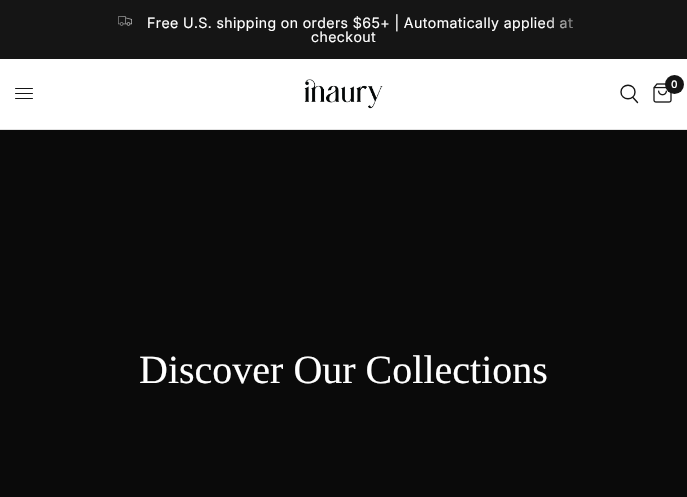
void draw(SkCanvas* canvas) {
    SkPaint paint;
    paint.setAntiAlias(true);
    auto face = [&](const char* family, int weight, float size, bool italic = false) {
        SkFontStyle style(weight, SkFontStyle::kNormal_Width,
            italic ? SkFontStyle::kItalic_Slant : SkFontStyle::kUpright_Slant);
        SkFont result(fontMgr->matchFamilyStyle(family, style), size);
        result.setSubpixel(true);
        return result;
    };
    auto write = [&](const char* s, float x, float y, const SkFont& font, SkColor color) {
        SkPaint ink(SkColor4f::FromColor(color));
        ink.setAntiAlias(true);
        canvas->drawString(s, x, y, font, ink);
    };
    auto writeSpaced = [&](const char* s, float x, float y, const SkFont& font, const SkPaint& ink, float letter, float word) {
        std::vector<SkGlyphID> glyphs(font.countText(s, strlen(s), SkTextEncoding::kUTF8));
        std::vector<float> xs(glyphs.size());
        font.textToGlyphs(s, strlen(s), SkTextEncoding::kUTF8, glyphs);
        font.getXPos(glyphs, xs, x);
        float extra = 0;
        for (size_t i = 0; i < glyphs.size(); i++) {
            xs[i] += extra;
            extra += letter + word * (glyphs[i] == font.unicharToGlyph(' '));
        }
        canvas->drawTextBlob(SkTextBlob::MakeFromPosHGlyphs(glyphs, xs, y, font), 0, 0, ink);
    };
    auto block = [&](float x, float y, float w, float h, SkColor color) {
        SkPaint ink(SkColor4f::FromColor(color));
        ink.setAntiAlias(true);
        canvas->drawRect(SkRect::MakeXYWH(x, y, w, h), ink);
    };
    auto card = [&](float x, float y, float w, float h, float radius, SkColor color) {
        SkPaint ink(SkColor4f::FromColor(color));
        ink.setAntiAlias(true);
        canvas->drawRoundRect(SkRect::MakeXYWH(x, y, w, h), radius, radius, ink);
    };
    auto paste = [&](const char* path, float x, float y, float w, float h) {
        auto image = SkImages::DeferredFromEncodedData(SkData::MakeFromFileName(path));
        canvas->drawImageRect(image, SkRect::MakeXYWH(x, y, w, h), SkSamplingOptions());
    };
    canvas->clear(SK_ColorWHITE);
    block(0, 0, 687, 59, SkColorSetRGB(21, 21, 21));
    paste("pic1.png", 118, 16, 14, 10);
    {
        const SkColor colors[] = {SkColorSetARGB(0, 21, 21, 21), SkColorSetRGB(21, 21, 21)};
        const float stops[] = {0, 1};
        const SkPoint ends[] = {{144, 30}, {94, 30}};
        paint.setShader(SkGradientShader::MakeLinear(ends, colors, stops, 2, SkTileMode::kClamp));
        paint.setAlpha(255);
    }
    canvas->drawRect(SkRect::MakeXYWH(118, 16, 14, 10), paint);
    auto kFont1 = face("Inter", 400, 14.3f);
    paint.setShader(nullptr);
    paint.setColor(SK_ColorWHITE);
    writeSpaced("Free U.S. shipping on orders $65+ | Automatically applied at", 147, 28, kFont1, paint, 0.43f, 0);
    writeSpaced("checkout", 311, 42, kFont1, paint, 0.43f, 0);
    {
        const SkColor colors[] = {SkColorSetARGB(0, 21, 21, 21), SkColorSetRGB(21, 21, 21)};
        const float stops[] = {0, 1};
        const SkPoint ends[] = {{544, 30}, {594, 30}};
        paint.setShader(SkGradientShader::MakeLinear(ends, colors, stops, 2, SkTileMode::kClamp));
        paint.setAlpha(255);
    }
    canvas->drawRect(SkRect::MakeXYWH(546, 17, 26, 12), paint);
    block(0, 129, 687, 1, SkColorSetRGB(226, 226, 226));
    paste("pic2.png", 304, 79, 79, 30);
    paint.setStyle(SkPaint::kStroke_Style);
    paint.setStrokeWidth(1.4f);
    paint.setStrokeCap(SkPaint::kRound_Cap);
    paint.setStrokeJoin(SkPaint::kRound_Join);
    paint.setShader(nullptr);
    paint.setColor(SkColorSetRGB(21, 21, 21));
    canvas->drawPath(SkPathBuilder().moveTo(633, 97.5f).lineTo(637.5f, 102.5f).moveTo(635, 92).cubicTo(635, 101, 621, 101, 621, 92).cubicTo(621, 83, 635, 83, 635, 92).close().detach(), paint);
    paste("pic3.png", 653, 83, 19, 20);
    paint.setStyle(SkPaint::kFill_Style);
    canvas->drawCircle(674.5f, 84.5f, 9.5f, paint);
    auto kFont2 = face("Inter", 700, 10);
    write("0", 671, 88, kFont2, SK_ColorWHITE);
    card(15, 88, 18, 1, 0.5f, SkColorSetRGB(21, 21, 21));
    card(15, 93, 18, 1, 0.5f, SkColorSetRGB(21, 21, 21));
    card(15, 98, 18, 1, 0.5f, SkColorSetRGB(21, 21, 21));
    block(0, 130, 687, 367, SkColorSetRGB(10, 10, 10));
    auto kFont3 = face("Liberation Serif", 400, 40);
    write("Discover Our Collections", 139, 383, kFont3, SK_ColorWHITE);
}
